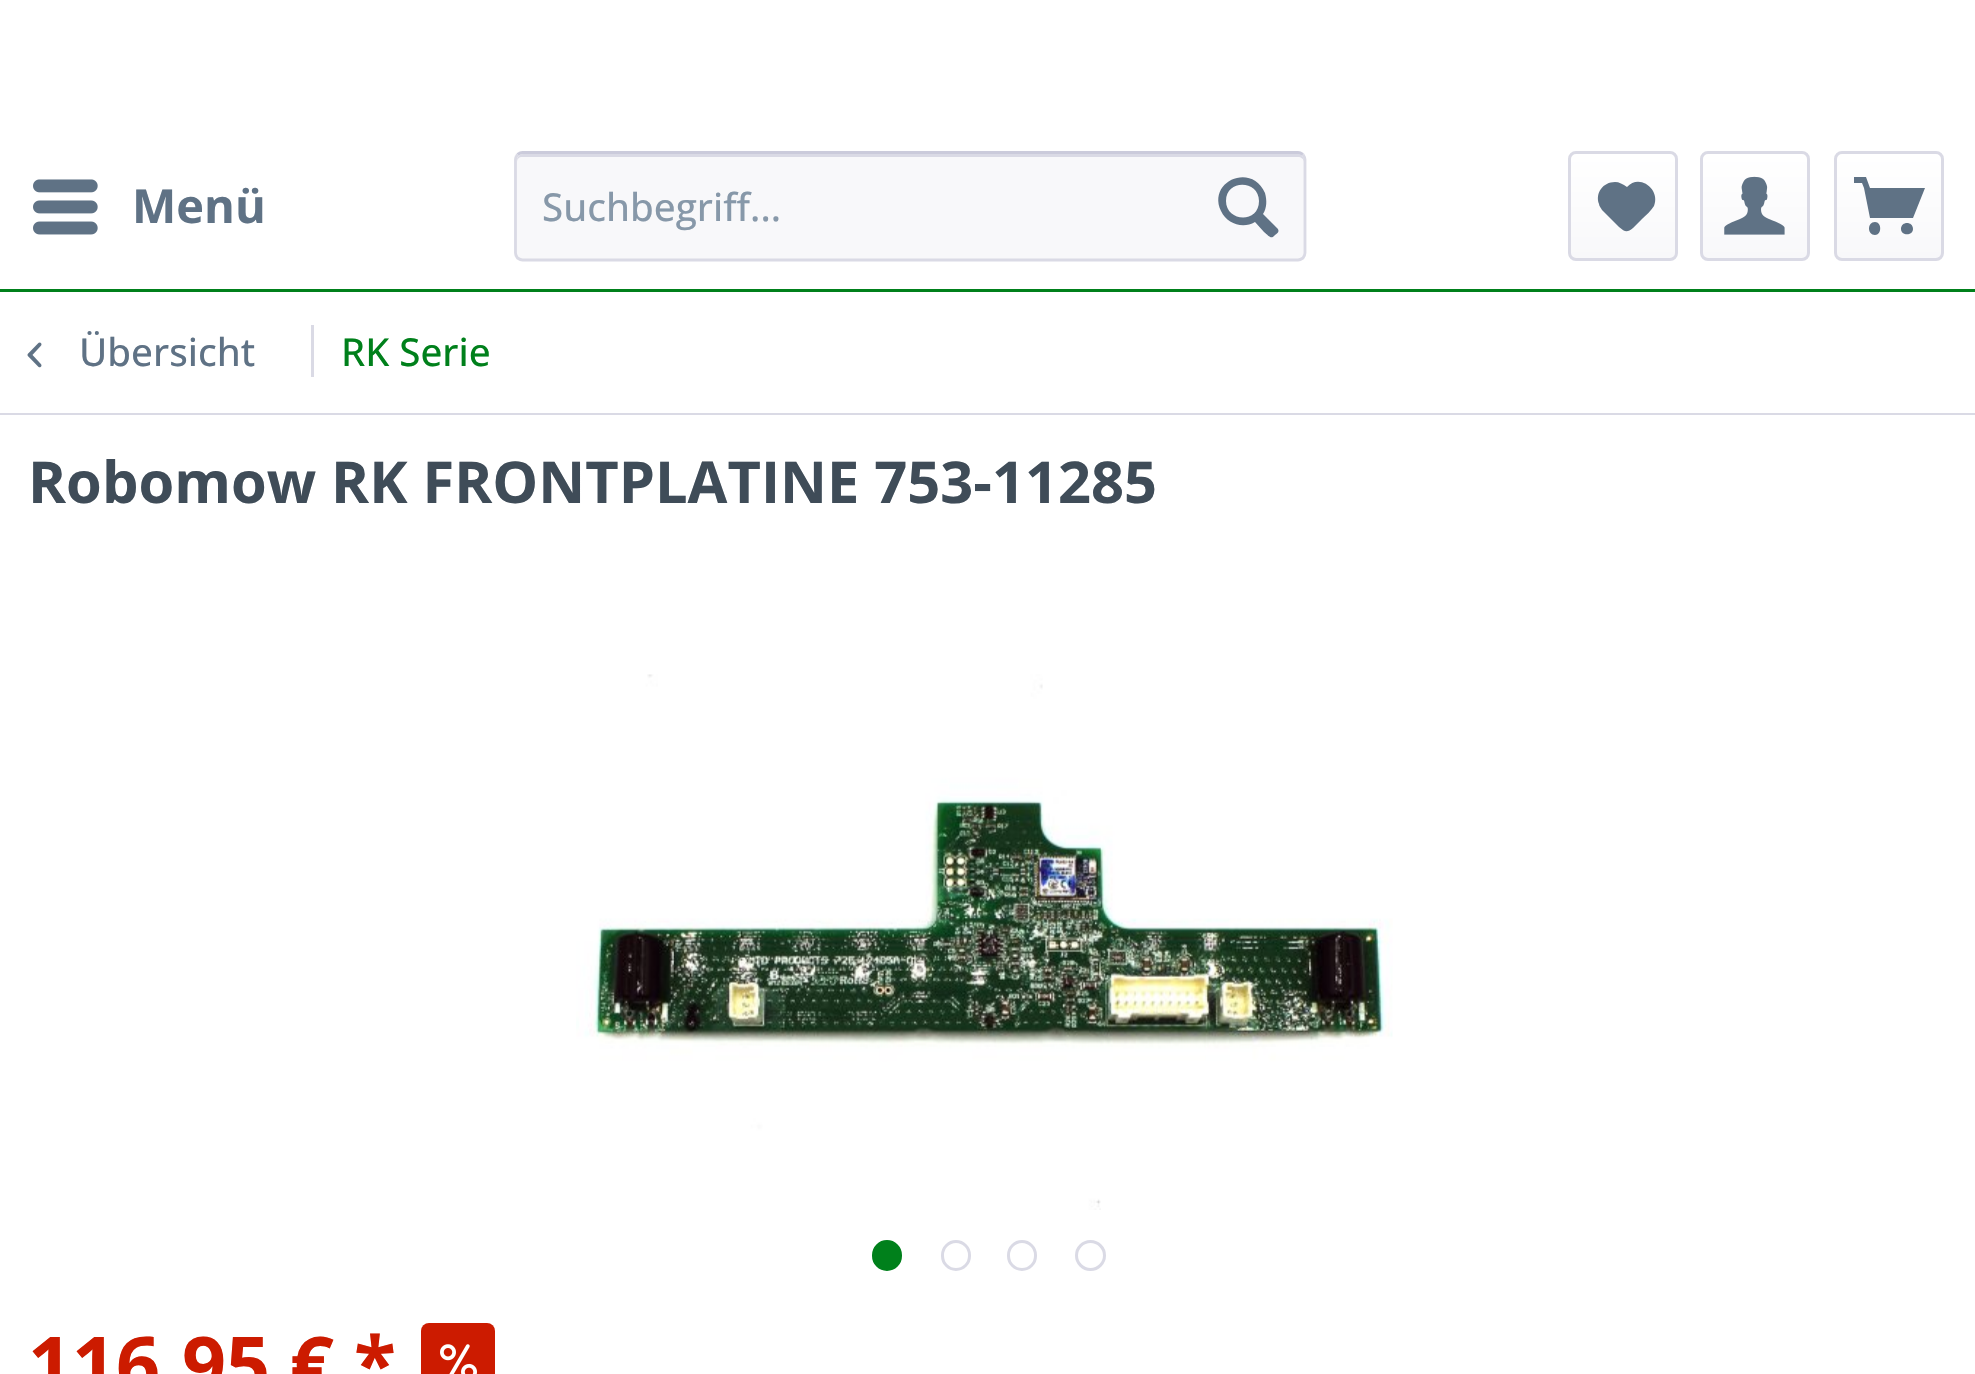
void draw(SkCanvas* canvas) {
    SkPaint paint;
    paint.setAntiAlias(true);
    auto face = [&](const char* family, int weight, float size, bool italic = false) {
        SkFontStyle style(weight, SkFontStyle::kNormal_Width,
            italic ? SkFontStyle::kItalic_Slant : SkFontStyle::kUpright_Slant);
        SkFont result(fontMgr->matchFamilyStyle(family, style), size);
        result.setSubpixel(true);
        return result;
    };
    auto write = [&](const char* s, float x, float y, const SkFont& font, SkColor color) {
        SkPaint ink(SkColor4f::FromColor(color));
        ink.setAntiAlias(true);
        canvas->drawString(s, x, y, font, ink);
    };
    auto block = [&](float x, float y, float w, float h, SkColor color) {
        SkPaint ink(SkColor4f::FromColor(color));
        ink.setAntiAlias(true);
        canvas->drawRect(SkRect::MakeXYWH(x, y, w, h), ink);
    };
    auto card = [&](float x, float y, float w, float h, float radius, SkColor color) {
        SkPaint ink(SkColor4f::FromColor(color));
        ink.setAntiAlias(true);
        canvas->drawRoundRect(SkRect::MakeXYWH(x, y, w, h), radius, radius, ink);
    };
    auto paste = [&](const char* path, float x, float y, float w, float h) {
        auto image = SkImages::DeferredFromEncodedData(SkData::MakeFromFileName(path));
        canvas->drawImageRect(image, SkRect::MakeXYWH(x, y, w, h), SkSamplingOptions());
    };
    canvas->clear(SK_ColorWHITE);
    block(0, 289, 1975, 3, SkColorSetRGB(0, 128, 27));
    paste("pic1.png", 33, 179, 65, 56);
    auto kFont1 = face("Open Sans", 700, 47);
    write("Menü", 132, 223, kFont1, SkColorSetRGB(95, 114, 133));
    card(514, 151, 792, 110, 8, SkColorSetRGB(248, 248, 250));
    paint.setColor(SkColorSetRGB(218, 218, 229));
    canvas->drawPath(SkPathBuilder().moveTo(522, 157).lineTo(1298, 157).cubicTo(1301, 157, 1304, 159, 1304, 162).lineTo(1304, 160).cubicTo(1304, 157, 1301, 154, 1298, 154).lineTo(523, 154).cubicTo(520, 154, 517, 157, 517, 160).lineTo(517, 162).cubicTo(517, 159, 519, 157, 522, 157).close().detach(), paint);
    paint.setStyle(SkPaint::kStroke_Style);
    paint.setStrokeWidth(2.8f);
    paint.setColor(SkColorSetRGB(203, 203, 219));
    canvas->drawPath(SkPathBuilder().moveTo(517.5f, 154.5f).cubicTo(519, 153.5f, 520.5f, 152.5f, 522.5f, 152.5f).lineTo(1298, 152.5f).cubicTo(1300, 152.5f, 1301.5f, 153.5f, 1303, 154.5f).detach(), paint);
    paint.setColor(SkColorSetRGB(218, 218, 229));
    canvas->drawPath(SkPathBuilder().moveTo(1303, 154.5f).cubicTo(1304, 156, 1305, 157.5f, 1305, 159.5f).lineTo(1305, 253).cubicTo(1305, 255, 1304, 256.5f, 1303, 258).cubicTo(1301.5f, 259, 1300, 260, 1298, 260).lineTo(522.5f, 260).cubicTo(520.5f, 260, 519, 259, 517.5f, 258).cubicTo(516.5f, 256.5f, 515.5f, 255, 515.5f, 253).lineTo(515.5f, 159.5f).cubicTo(515.5f, 157.5f, 516.5f, 156, 517.5f, 154.5f).detach(), paint);
    auto kFont2 = face("Open Sans", 500, 38.5f);
    write("Suchbegriff...", 542, 221, kFont2, SkColorSetRGB(135, 152, 169));
    paint.setStyle(SkPaint::kFill_Style);
    paint.setColor(SkColorSetRGB(95, 114, 133));
    canvas->drawPath(SkPathBuilder().moveTo(1277, 228).lineTo(1263, 214).cubicTo(1267, 208, 1267, 200, 1265, 193).cubicTo(1252, 162, 1207, 181, 1221, 211).cubicTo(1227, 224, 1243, 229, 1255, 222).lineTo(1264, 232).cubicTo(1269, 236, 1271, 240, 1275, 235).cubicTo(1278, 233, 1280, 231, 1277, 228).close().moveTo(1226, 201).cubicTo(1226, 179, 1259, 180, 1259, 201).cubicTo(1259, 224, 1226, 222, 1226, 201).close().detach(), paint);
    {
        const SkColor colors[] = {SK_ColorWHITE, SkColorSetRGB(248, 248, 250)};
        const float stops[] = {0, 1};
        const SkPoint ends[] = {{1623, 154}, {1623, 259}};
        paint.setShader(SkGradientShader::MakeLinear(ends, colors, stops, 2, SkTileMode::kClamp));
        paint.setAlpha(255);
    }
    canvas->drawRoundRect(SkRect::MakeXYWH(1570, 154, 105, 105), 6, 6, paint);
    paint.setStyle(SkPaint::kStroke_Style);
    paint.setStrokeWidth(3);
    paint.setShader(nullptr);
    paint.setColor(SkColorSetRGB(218, 218, 229));
    canvas->drawRoundRect(SkRect::MakeXYWH(1569.5f, 152.5f, 107, 107), 6.5f, 6.5f, paint);
    paint.setStyle(SkPaint::kFill_Style);
    paint.setColor(SkColorSetRGB(95, 114, 133));
    canvas->drawPath(SkPathBuilder().moveTo(1615, 182).cubicTo(1603, 182, 1595, 193, 1599, 204).cubicTo(1599, 206, 1601, 208, 1602, 210).lineTo(1619, 227).cubicTo(1625, 232, 1627, 233, 1633, 228).lineTo(1642, 219).cubicTo(1646, 215, 1651, 211, 1654, 206).cubicTo(1661, 189, 1639, 173, 1627, 187).cubicTo(1623, 184, 1619, 182, 1615, 182).close().detach(), paint);
    {
        const SkColor colors[] = {SK_ColorWHITE, SkColorSetRGB(248, 248, 250)};
        const float stops[] = {0, 1};
        const SkPoint ends[] = {{1755, 154}, {1755, 259}};
        paint.setShader(SkGradientShader::MakeLinear(ends, colors, stops, 2, SkTileMode::kClamp));
        paint.setAlpha(255);
    }
    canvas->drawRoundRect(SkRect::MakeXYWH(1702, 154, 105, 105), 6, 6, paint);
    paint.setStyle(SkPaint::kStroke_Style);
    paint.setShader(nullptr);
    paint.setColor(SkColorSetRGB(218, 218, 229));
    canvas->drawRoundRect(SkRect::MakeXYWH(1701.5f, 152.5f, 107, 107), 6.5f, 6.5f, paint);
    paste("pic2.png", 1724, 176, 61, 59);
    paint.setStyle(SkPaint::kFill_Style);
    {
        const SkColor colors[] = {SK_ColorWHITE, SkColorSetRGB(248, 248, 250)};
        const float stops[] = {0, 1};
        const SkPoint ends[] = {{1889, 154}, {1889, 259}};
        paint.setShader(SkGradientShader::MakeLinear(ends, colors, stops, 2, SkTileMode::kClamp));
        paint.setAlpha(255);
    }
    canvas->drawRoundRect(SkRect::MakeXYWH(1837, 154, 105, 105), 6, 6, paint);
    paint.setStyle(SkPaint::kStroke_Style);
    paint.setShader(nullptr);
    paint.setColor(SkColorSetRGB(218, 218, 229));
    canvas->drawRoundRect(SkRect::MakeXYWH(1835.5f, 152.5f, 107, 107), 6.5f, 6.5f, paint);
    paint.setStyle(SkPaint::kFill_Style);
    paint.setColor(SkColorSetRGB(95, 114, 133));
    canvas->drawPath(SkPathBuilder().moveTo(1870, 218).lineTo(1913, 218).lineTo(1925, 188).lineTo(1870, 188).lineTo(1866, 177).lineTo(1854, 177).lineTo(1854, 183).lineTo(1862, 183).lineTo(1864, 188).close().moveTo(1875, 222).cubicTo(1867, 222, 1867, 235, 1875, 235).cubicTo(1882, 235, 1882, 222, 1875, 222).close().moveTo(1913, 229).cubicTo(1913, 236, 1901, 236, 1901, 229).cubicTo(1901, 221, 1913, 221, 1913, 229).close().detach(), paint);
    block(0, 413, 1975, 2, SkColorSetRGB(218, 218, 229));
    paste("pic3.png", 27, 342, 15, 26);
    write("Übersicht", 79, 366, kFont2, SkColorSetRGB(95, 114, 133));
    block(311, 325, 3, 52, SkColorSetRGB(218, 218, 229));
    write("RK Serie", 341, 366, kFont2, SkColorSetRGB(0, 128, 27));
    auto kFont3 = face("Open Sans", 700, 57.75f);
    write("Robomow RK FRONTPLATINE 753-11285", 28, 503, kFont3, SkColorSetRGB(63, 76, 88));
    paste("pic4.png", 576, 674, 817, 536);
    paint.setColor(SkColorSetRGB(0, 128, 27));
    canvas->drawRoundRect(SkRect::MakeXYWH(873.5f, 1241.5f, 27, 28), 13.5f, 13.5f, paint);
    paint.setStyle(SkPaint::kStroke_Style);
    canvas->drawRoundRect(SkRect::MakeXYWH(873.5f, 1241.5f, 27, 28), 13.5f, 13.5f, paint);
    paint.setColor(SkColorSetRGB(218, 218, 229));
    canvas->drawRoundRect(SkRect::MakeXYWH(942.5f, 1241.5f, 27, 28), 13.5f, 13.5f, paint);
    canvas->drawRoundRect(SkRect::MakeXYWH(1008.5f, 1241.5f, 27, 28), 13.5f, 13.5f, paint);
    canvas->drawCircle(1090.5f, 1255.5f, 14, paint);
    auto kFont4 = face("Open Sans", 700, 77);
    write("116,95 € *", 28, 1392, kFont4, SkColorSetRGB(204, 27, 0));
    card(421, 1323, 74, 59, 8, SkColorSetRGB(204, 27, 0));
    paste("pic5.png", 440, 1344, 37, 30);
}
